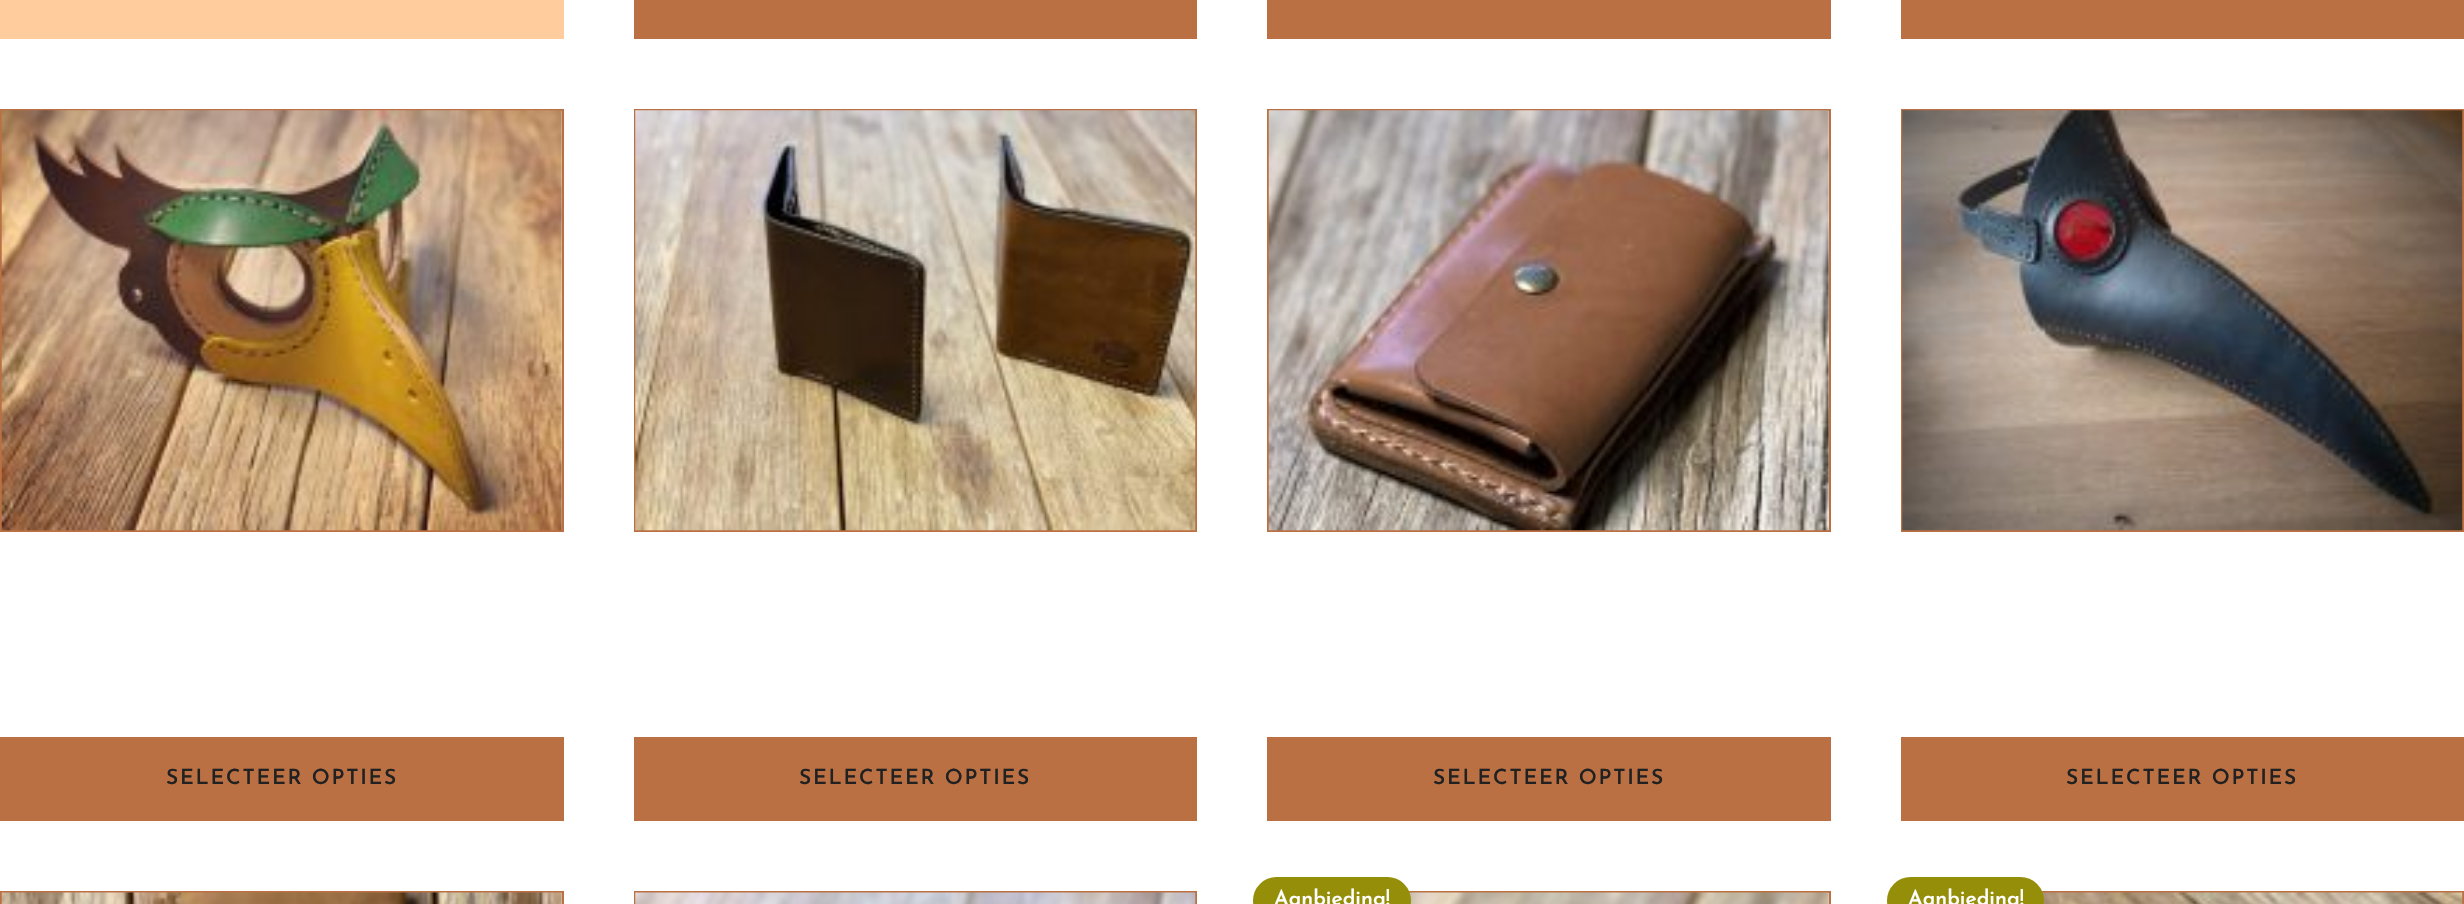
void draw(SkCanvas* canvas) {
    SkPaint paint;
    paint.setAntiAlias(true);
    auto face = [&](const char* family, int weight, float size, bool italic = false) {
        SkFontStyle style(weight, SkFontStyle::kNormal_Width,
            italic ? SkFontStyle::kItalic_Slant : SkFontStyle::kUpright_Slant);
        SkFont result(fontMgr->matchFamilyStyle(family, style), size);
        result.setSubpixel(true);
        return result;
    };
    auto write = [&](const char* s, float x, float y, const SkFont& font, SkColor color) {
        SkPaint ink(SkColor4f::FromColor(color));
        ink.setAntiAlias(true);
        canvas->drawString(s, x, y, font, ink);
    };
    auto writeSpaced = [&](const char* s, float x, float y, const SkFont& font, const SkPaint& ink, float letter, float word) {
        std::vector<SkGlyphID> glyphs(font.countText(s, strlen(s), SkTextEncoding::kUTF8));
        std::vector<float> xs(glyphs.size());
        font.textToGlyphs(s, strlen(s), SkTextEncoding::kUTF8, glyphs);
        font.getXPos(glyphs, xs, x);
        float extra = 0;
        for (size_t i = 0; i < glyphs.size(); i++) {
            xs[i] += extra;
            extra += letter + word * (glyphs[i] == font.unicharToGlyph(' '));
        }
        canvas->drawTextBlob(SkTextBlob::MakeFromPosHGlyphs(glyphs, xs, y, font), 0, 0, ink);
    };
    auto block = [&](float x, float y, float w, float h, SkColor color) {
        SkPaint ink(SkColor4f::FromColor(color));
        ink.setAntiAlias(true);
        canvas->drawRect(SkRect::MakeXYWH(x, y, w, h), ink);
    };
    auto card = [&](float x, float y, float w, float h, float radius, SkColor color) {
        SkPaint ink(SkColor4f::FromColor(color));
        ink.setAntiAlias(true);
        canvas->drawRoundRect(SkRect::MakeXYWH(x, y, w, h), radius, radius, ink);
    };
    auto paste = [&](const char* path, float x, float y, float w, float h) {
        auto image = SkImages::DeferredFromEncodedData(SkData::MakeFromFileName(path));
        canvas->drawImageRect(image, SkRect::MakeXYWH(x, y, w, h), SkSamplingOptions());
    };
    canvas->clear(SK_ColorWHITE);
    block(0, 0, 564, 39, SkColorSetRGB(255, 205, 157));
    block(634, 0, 563, 39, SkColorSetRGB(187, 112, 67));
    block(1267, 0, 564, 39, SkColorSetRGB(187, 112, 67));
    block(1901, 0, 563, 39, SkColorSetRGB(187, 112, 67));
    paint.setStyle(SkPaint::kStroke_Style);
    paint.setStrokeWidth(2);
    paint.setColor(SkColorSetRGB(187, 112, 67));
    canvas->drawRect(SkRect::MakeXYWH(1, 110, 562, 421), paint);
    paste("pic1.png", 1, 110, 561, 421);
    block(0, 737, 564, 84, SkColorSetRGB(187, 112, 67));
    auto kFont1 = face("Josefin Sans", 600, 21);
    paint.setStyle(SkPaint::kFill_Style);
    paint.setColor(SkColorSetRGB(33, 33, 33));
    writeSpaced("SELECTEER OPTIES", 166, 784, kFont1, paint, 1.75f, 0);
    paint.setStyle(SkPaint::kStroke_Style);
    paint.setColor(SkColorSetRGB(187, 112, 67));
    canvas->drawRect(SkRect::MakeXYWH(635, 110, 561, 421), paint);
    paste("pic2.png", 635, 110, 561, 421);
    block(634, 737, 563, 84, SkColorSetRGB(187, 112, 67));
    paint.setStyle(SkPaint::kFill_Style);
    paint.setColor(SkColorSetRGB(33, 33, 33));
    writeSpaced("SELECTEER OPTIES", 799, 784, kFont1, paint, 1.75f, 0);
    paint.setStyle(SkPaint::kStroke_Style);
    paint.setColor(SkColorSetRGB(187, 112, 67));
    canvas->drawRect(SkRect::MakeXYWH(1268, 110, 562, 421), paint);
    paste("pic3.png", 1268, 110, 561, 421);
    block(1267, 737, 564, 84, SkColorSetRGB(187, 112, 67));
    paint.setStyle(SkPaint::kFill_Style);
    paint.setColor(SkColorSetRGB(33, 33, 33));
    writeSpaced("SELECTEER OPTIES", 1433, 784, kFont1, paint, 1.75f, 0);
    paint.setStyle(SkPaint::kStroke_Style);
    paint.setColor(SkColorSetRGB(187, 112, 67));
    canvas->drawRect(SkRect::MakeXYWH(1902, 110, 561, 421), paint);
    paste("pic4.png", 1902, 110, 561, 421);
    block(1901, 737, 563, 84, SkColorSetRGB(187, 112, 67));
    paint.setStyle(SkPaint::kFill_Style);
    paint.setColor(SkColorSetRGB(33, 33, 33));
    writeSpaced("SELECTEER OPTIES", 2066, 784, kFont1, paint, 1.75f, 0);
    paint.setStyle(SkPaint::kStroke_Style);
    paint.setColor(SkColorSetRGB(187, 112, 67));
    canvas->drawRect(SkRect::MakeXYWH(1, 892, 562, 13), paint);
    paste("pic5.png", 1, 892, 561, 12);
    canvas->drawRect(SkRect::MakeXYWH(635, 892, 561, 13), paint);
    paste("pic6.png", 635, 892, 561, 12);
    canvas->drawRect(SkRect::MakeXYWH(1268, 892, 562, 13), paint);
    paste("pic7.png", 1409, 892, 420, 12);
    card(1253, 877, 158, 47, 23.5f, SkColorSetRGB(149, 142, 9));
    write("Aanbieding!", 1274, 905, kFont1, SK_ColorWHITE);
    canvas->drawRect(SkRect::MakeXYWH(1902, 892, 561, 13), paint);
    paste("pic8.png", 2042, 892, 421, 12);
    card(1887, 877, 157, 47, 23.5f, SkColorSetRGB(149, 142, 9));
    write("Aanbieding!", 1908, 905, kFont1, SK_ColorWHITE);
}
